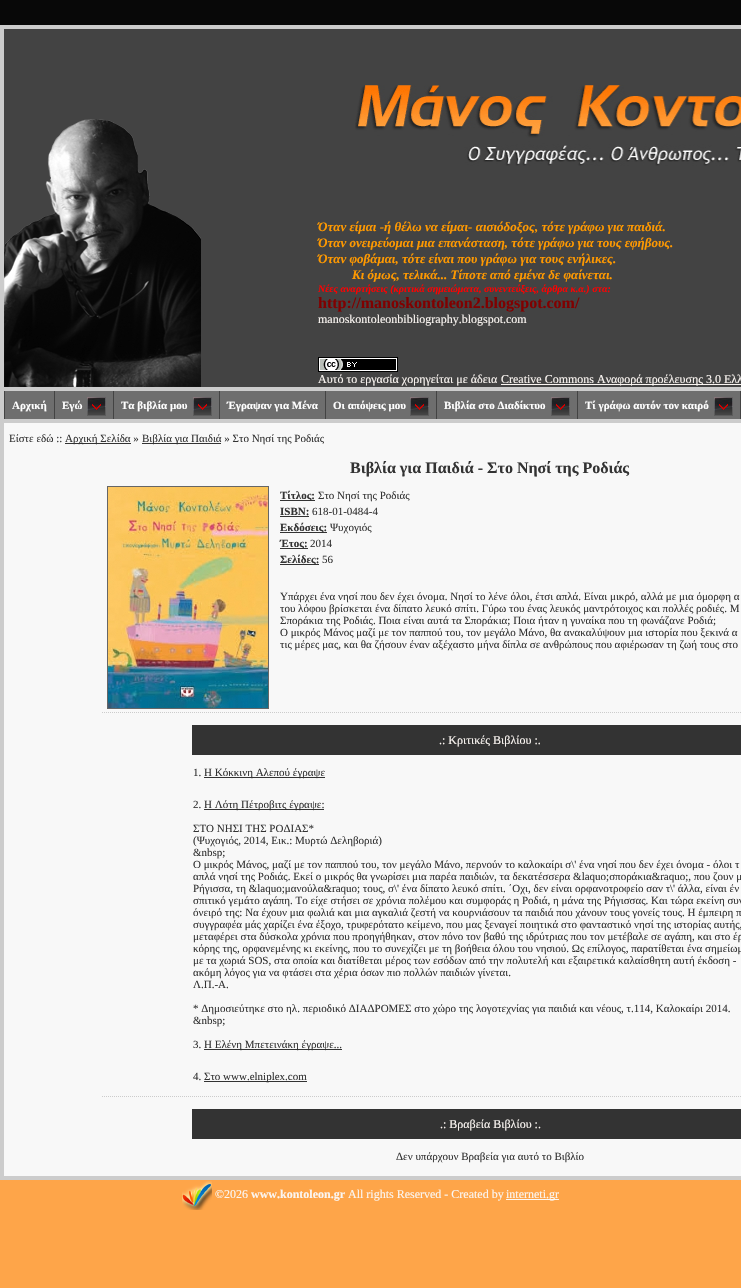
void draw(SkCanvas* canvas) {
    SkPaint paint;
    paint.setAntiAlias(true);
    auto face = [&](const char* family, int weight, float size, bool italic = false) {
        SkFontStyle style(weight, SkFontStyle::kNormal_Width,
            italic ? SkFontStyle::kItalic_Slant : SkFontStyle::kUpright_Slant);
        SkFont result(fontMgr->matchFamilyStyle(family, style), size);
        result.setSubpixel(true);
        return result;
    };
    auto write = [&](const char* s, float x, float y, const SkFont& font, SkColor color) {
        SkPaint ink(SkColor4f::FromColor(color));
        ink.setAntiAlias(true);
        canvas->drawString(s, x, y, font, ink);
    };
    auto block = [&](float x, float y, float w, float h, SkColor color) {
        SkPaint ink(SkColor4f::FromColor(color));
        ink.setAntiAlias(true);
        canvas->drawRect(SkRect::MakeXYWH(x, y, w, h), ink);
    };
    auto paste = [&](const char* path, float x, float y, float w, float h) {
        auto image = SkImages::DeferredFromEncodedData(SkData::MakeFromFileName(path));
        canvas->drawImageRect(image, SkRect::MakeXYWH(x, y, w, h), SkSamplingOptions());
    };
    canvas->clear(SkColorSetRGB(254, 165, 73));
    paste("pic1.png", 0, 0, 741, 25);
    block(4, 29, 737, 358, SkColorSetRGB(67, 67, 67));
    block(0, 25, 741, 4, SkColorSetRGB(204, 204, 204));
    block(0, 25, 4, 362, SkColorSetRGB(204, 204, 204));
    paste("pic2.png", 4, 119, 197, 268);
    paste("pic3.png", 355, 85, 386, 81);
    auto kFont1 = face("Liberation Serif", 700, 13, true);
    write("Όταν είμαι -ή θέλω να είμαι- αισιόδοξος, τότε γράφω για παιδιά.", 318, 231, kFont1, SkColorSetRGB(255, 153, 0));
    write("Όταν ονειρεύομαι μια επανάσταση, τότε γράφω για τους εφήβους.", 318, 247, kFont1, SkColorSetRGB(255, 153, 0));
    write("Όταν φοβάμαι, τότε είναι που γράφω για τους ενήλικες.", 318, 263, kFont1, SkColorSetRGB(255, 153, 0));
    write("Κι όμως, τελικά... Τίποτε από εμένα δε φαίνεται.", 352, 279, kFont1, SkColorSetRGB(255, 153, 0));
    auto kFont2 = face("Liberation Serif", 700, 10, true);
    write("Νέες αναρτήσεις (κριτικά σημειώματα, συνεντεύξεις, άρθρα κ.α.) στα:", 318, 292, kFont2, SkColorSetRGB(255, 0, 0));
    auto kFont3 = face("Liberation Serif", 700, 16);
    write("http://manoskontoleon2.blogspot.com/", 318, 308, kFont3, SkColorSetRGB(128, 0, 0));
    auto kFont4 = face("Liberation Serif", 400, 12);
    write("manoskontoleonbibliography.blogspot.com", 318, 323, kFont4, SkColorSetRGB(251, 246, 242));
    paste("pic4.png", 318, 357, 80, 15);
    write("Αυτό το εργασία χορηγείται με άδεια", 318, 383, kFont4, SkColorSetRGB(251, 246, 242));
    block(501, 384, 240, 1, SkColorSetRGB(251, 246, 242));
    write("Creative Commons Αναφορά προέλευσης 3.0 Ελλ", 501, 383, kFont4, SkColorSetRGB(251, 246, 242));
    paint.setStyle(SkPaint::kStroke_Style);
    paint.setStrokeWidth(4);
    paint.setColor(SkColorSetRGB(204, 204, 204));
    canvas->drawRect(SkRect::MakeXYWH(2, 389, 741, 32), paint);
    block(4, 391, 1, 28, SkColorSetRGB(67, 67, 67));
    block(5, 391, 49, 28, SkColorSetRGB(110, 110, 110));
    auto kFont5 = face("Liberation Serif", 700, 11);
    write("Αρχική", 12, 409, kFont5, SK_ColorWHITE);
    block(54, 391, 1, 28, SkColorSetRGB(67, 67, 67));
    block(55, 391, 58, 28, SkColorSetRGB(110, 110, 110));
    write("Εγώ", 62, 409, kFont5, SK_ColorWHITE);
    paste("pic5.png", 87, 397, 19, 19);
    block(113, 391, 1, 28, SkColorSetRGB(67, 67, 67));
    block(114, 391, 105, 28, SkColorSetRGB(110, 110, 110));
    write("Τα βιβλία μου", 121, 409, kFont5, SK_ColorWHITE);
    paste("pic5.png", 193, 397, 19, 19);
    block(219, 391, 1, 28, SkColorSetRGB(67, 67, 67));
    block(220, 391, 105, 28, SkColorSetRGB(110, 110, 110));
    write("Έγραψαν για Μένα", 227, 409, kFont5, SK_ColorWHITE);
    block(325, 391, 1, 28, SkColorSetRGB(67, 67, 67));
    block(326, 391, 110, 28, SkColorSetRGB(110, 110, 110));
    write("Οι απόψεις μου", 333, 409, kFont5, SK_ColorWHITE);
    paste("pic5.png", 410, 397, 19, 19);
    block(436, 391, 1, 28, SkColorSetRGB(67, 67, 67));
    block(437, 391, 140, 28, SkColorSetRGB(110, 110, 110));
    write("Βιβλία στο Διαδίκτυο", 444, 409, kFont5, SK_ColorWHITE);
    paste("pic5.png", 551, 397, 19, 19);
    block(577, 391, 1, 28, SkColorSetRGB(67, 67, 67));
    block(578, 391, 162, 28, SkColorSetRGB(110, 110, 110));
    write("Τί γράφω αυτόν τον καιρό", 585, 409, kFont5, SK_ColorWHITE);
    paste("pic5.png", 714, 397, 19, 19);
    block(740, 391, 1, 28, SkColorSetRGB(67, 67, 67));
    block(4, 423, 737, 753, SkColorSetRGB(248, 248, 248));
    block(0, 1176, 741, 4, SkColorSetRGB(204, 204, 204));
    block(0, 423, 4, 757, SkColorSetRGB(204, 204, 204));
    auto kFont6 = face("Liberation Serif", 400, 11);
    write("Είστε εδώ ::", 9, 442, kFont6, SkColorSetRGB(51, 51, 51));
    block(65, 443, 66, 1, SkColorSetRGB(51, 51, 51));
    write("Αρχική Σελίδα »", 65, 442, kFont6, SkColorSetRGB(51, 51, 51));
    block(142, 443, 79, 1, SkColorSetRGB(51, 51, 51));
    write("Βιβλία για Παιδιά » Στο Νησί της Ροδιάς", 142, 442, kFont6, SkColorSetRGB(51, 51, 51));
    write("Βιβλία για Παιδιά - Στο Νησί της Ροδιάς", 350, 473, kFont3, SkColorSetRGB(51, 51, 51));
    paint.setStrokeWidth(1);
    paint.setColor(SkColorSetRGB(102, 102, 102));
    canvas->drawRect(SkRect::MakeXYWH(107.5f, 486.5f, 161, 222), paint);
    paste("pic6.png", 108, 487, 160, 221);
    block(280, 500, 35, 1, SkColorSetRGB(51, 51, 51));
    write("Τίτλος:", 280, 499, kFont5, SkColorSetRGB(51, 51, 51));
    write("Στο Νησί της Ροδιάς", 318, 499, kFont6, SkColorSetRGB(51, 51, 51));
    write("ISBN:", 280, 515, kFont5, SkColorSetRGB(51, 51, 51));
    block(280, 516, 29, 1, SkColorSetRGB(51, 51, 51));
    write("618-01-0484-4", 312, 515, kFont6, SkColorSetRGB(51, 51, 51));
    block(280, 532, 47, 1, SkColorSetRGB(51, 51, 51));
    write("Εκδόσεις:", 280, 531, kFont5, SkColorSetRGB(51, 51, 51));
    write("Ψυχογιός", 330, 531, kFont6, SkColorSetRGB(51, 51, 51));
    block(280, 548, 28, 1, SkColorSetRGB(51, 51, 51));
    write("Έτος:", 280, 547, kFont5, SkColorSetRGB(51, 51, 51));
    write("2014", 310, 547, kFont6, SkColorSetRGB(51, 51, 51));
    block(280, 564, 39, 1, SkColorSetRGB(51, 51, 51));
    write("Σελίδες:", 280, 563, kFont5, SkColorSetRGB(51, 51, 51));
    write("56", 322, 563, kFont6, SkColorSetRGB(51, 51, 51));
    write("Υπάρχει ένα νησί που δεν έχει όνομα. Νησί το λένε όλοι, έτσι απλά. Είναι μικρό, αλλά με μια όμορφη α", 280, 600, kFont6, SkColorSetRGB(51, 51, 51));
    write("του λόφου βρίσκεται ένα δίπατο λευκό σπίτι. Γύρω του ένας λευκός μαντρότοιχος και πολλές ροδιές. Μ", 280, 612, kFont6, SkColorSetRGB(51, 51, 51));
    write("Σποράκια της Ροδιάς. Ποια είναι αυτά τα Σποράκια; Ποια ήταν η γυναίκα που τη φωνάζανε Ροδιά;", 280, 624, kFont6, SkColorSetRGB(51, 51, 51));
    write("Ο μικρός Μάνος μαζί με τον παππού του, τον μεγάλο Μάνο, θα ανακαλύψουν μια ιστορία που ξεκινά α", 280, 636, kFont6, SkColorSetRGB(51, 51, 51));
    write("τις μέρες μας, και θα ζήσουν έναν αξέχαστο μήνα δίπλα σε ανθρώπους που αφιέρωσαν τη ζωή τους στο", 280, 648, kFont6, SkColorSetRGB(51, 51, 51));
    paint.setColor(SkColorSetRGB(204, 204, 204));
    paint.setPathEffect(SkDashPathEffect::Make({{1, 1}}, 0));
    canvas->drawPath(SkPathBuilder().moveTo(102, 712.5f).lineTo(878, 712.5f).detach(), paint);
    paint.setPathEffect(nullptr);
    block(192, 725, 549, 30, SkColorSetRGB(51, 51, 51));
    write(".: Κριτικές Βιβλίου :.", 439, 744, kFont4, SkColorSetRGB(251, 246, 242));
    write("1.", 193, 776, kFont6, SkColorSetRGB(51, 51, 51));
    block(204, 777, 121, 1, SkColorSetRGB(51, 51, 51));
    write("Η Κόκκινη Αλεπού έγραψε", 204, 776, kFont6, SkColorSetRGB(51, 51, 51));
    write("2.", 193, 808, kFont6, SkColorSetRGB(51, 51, 51));
    block(204, 809, 120, 1, SkColorSetRGB(51, 51, 51));
    write("Η Λότη Πέτροβιτς έγραψε:", 204, 808, kFont6, SkColorSetRGB(51, 51, 51));
    write("ΣΤΟ ΝΗΣΙ ΤΗΣ ΡΟΔΙΑΣ*", 193, 832, kFont6, SkColorSetRGB(51, 51, 51));
    write("(Ψυχογιός, 2014, Εικ.: Μυρτώ Δεληβοριά)", 193, 844, kFont6, SkColorSetRGB(51, 51, 51));
    write("&nbsp;", 193, 856, kFont6, SkColorSetRGB(51, 51, 51));
    write("Ο μικρός Μάνος, μαζί με τον παππού του, τον μεγάλο Μάνο, περνούν το καλοκαίρι σ\\' ένα νησί που δεν έχει όνομα - όλοι τ", 193, 868, kFont6, SkColorSetRGB(51, 51, 51));
    write("απλά νησί της Ροδιάς. Εκεί ο μικρός θα γνωρίσει μια παρέα παιδιών, τα δεκατέσσερα &laquo;σποράκια&raquo;, που ζουν μ", 193, 880, kFont6, SkColorSetRGB(51, 51, 51));
    write("Ρήγισσα, τη &laquo;μανούλα&raquo; τους, σ\\' ένα δίπατο λευκό σπίτι. ΄Οχι, δεν είναι ορφανοτροφείο σαν τ\\' άλλα, είναι έν", 193, 892, kFont6, SkColorSetRGB(51, 51, 51));
    write("σπιτικό γεμάτο αγάπη. Το είχε στήσει σε χρόνια πολέμου και συμφοράς η Ροδιά, η μάνα της Ρήγισσας. Και τώρα εκείνη συν", 193, 904, kFont6, SkColorSetRGB(51, 51, 51));
    write("όνειρό της: Να έχουν μια φωλιά και μια αγκαλιά ζεστή να κουρνιάσουν τα παιδιά που χάνουν τους γονείς τους. Η έμπειρη π", 193, 916, kFont6, SkColorSetRGB(51, 51, 51));
    write("συγγραφέα μάς χαρίζει ένα έξοχο, τρυφερότατο κείμενο, που μας ξεναγεί ποιητικά στο φανταστικό νησί της ιστορίας αυτής,", 193, 928, kFont6, SkColorSetRGB(51, 51, 51));
    write("μεταφέρει στα δύσκολα χρόνια που προηγήθηκαν, στον πόνο τον βαθύ της ιδρύτριας που τον μετέβαλε σε αγάπη, και στο έρ", 193, 940, kFont6, SkColorSetRGB(51, 51, 51));
    write("κόρης της, ορφανεμένης κι εκείνης, που το συνεχίζει με τη βοήθεια όλου του νησιού. Ως επίλογος, παρατίθεται ένα σημείωμ", 193, 952, kFont6, SkColorSetRGB(51, 51, 51));
    write("με τα χωριά SOS, στα οποία και διατίθεται μέρος των εσόδων από την πολυτελή και εξαιρετικά καλαίσθητη αυτή έκδοση -", 193, 964, kFont6, SkColorSetRGB(51, 51, 51));
    write("ακόμη λόγος για να φτάσει στα χέρια όσων πιο πολλών παιδιών γίνεται.", 193, 976, kFont6, SkColorSetRGB(51, 51, 51));
    write("Λ.Π.-Α.", 193, 988, kFont6, SkColorSetRGB(51, 51, 51));
    write("* Δημοσιεύτηκε στο ηλ. περιοδικό ΔΙΑΔΡΟΜΕΣ στο χώρο της λογοτεχνίας για παιδιά και νέους, τ.114, Καλοκαίρι 2014.", 193, 1012, kFont6, SkColorSetRGB(51, 51, 51));
    write("&nbsp;", 193, 1024, kFont6, SkColorSetRGB(51, 51, 51));
    write("3.", 193, 1048, kFont6, SkColorSetRGB(51, 51, 51));
    block(204, 1049, 138, 1, SkColorSetRGB(51, 51, 51));
    write("Η Ελένη Μπετεινάκη έγραψε...", 204, 1048, kFont6, SkColorSetRGB(51, 51, 51));
    write("4.", 193, 1080, kFont6, SkColorSetRGB(51, 51, 51));
    block(204, 1081, 103, 1, SkColorSetRGB(51, 51, 51));
    write("Στο www.elniplex.com", 204, 1080, kFont6, SkColorSetRGB(51, 51, 51));
    paint.setPathEffect(SkDashPathEffect::Make({{1, 1}}, 0));
    canvas->drawPath(SkPathBuilder().moveTo(102, 1096.5f).lineTo(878, 1096.5f).detach(), paint);
    paint.setPathEffect(nullptr);
    block(192, 1109, 549, 30, SkColorSetRGB(51, 51, 51));
    write(".: Βραβεία Βιβλίου :.", 440, 1128, kFont4, SkColorSetRGB(251, 246, 242));
    write("Δεν υπάρχουν Βραβεία για αυτό το Βιβλίο", 396, 1160, kFont6, SkColorSetRGB(51, 51, 51));
    paste("pic7.png", 182, 1181, 30, 29);
    write("©2026", 215, 1198, kFont4, SkColorSetRGB(251, 246, 242));
    auto kFont7 = face("Liberation Serif", 700, 12);
    write("www.kontoleon.gr", 251, 1198, kFont7, SkColorSetRGB(251, 246, 242));
    write("All rights Reserved - Created by", 348, 1198, kFont4, SkColorSetRGB(251, 246, 242));
    block(506, 1199, 53, 1, SkColorSetRGB(251, 246, 242));
    write("interneti.gr", 506, 1198, kFont4, SkColorSetRGB(251, 246, 242));
}
